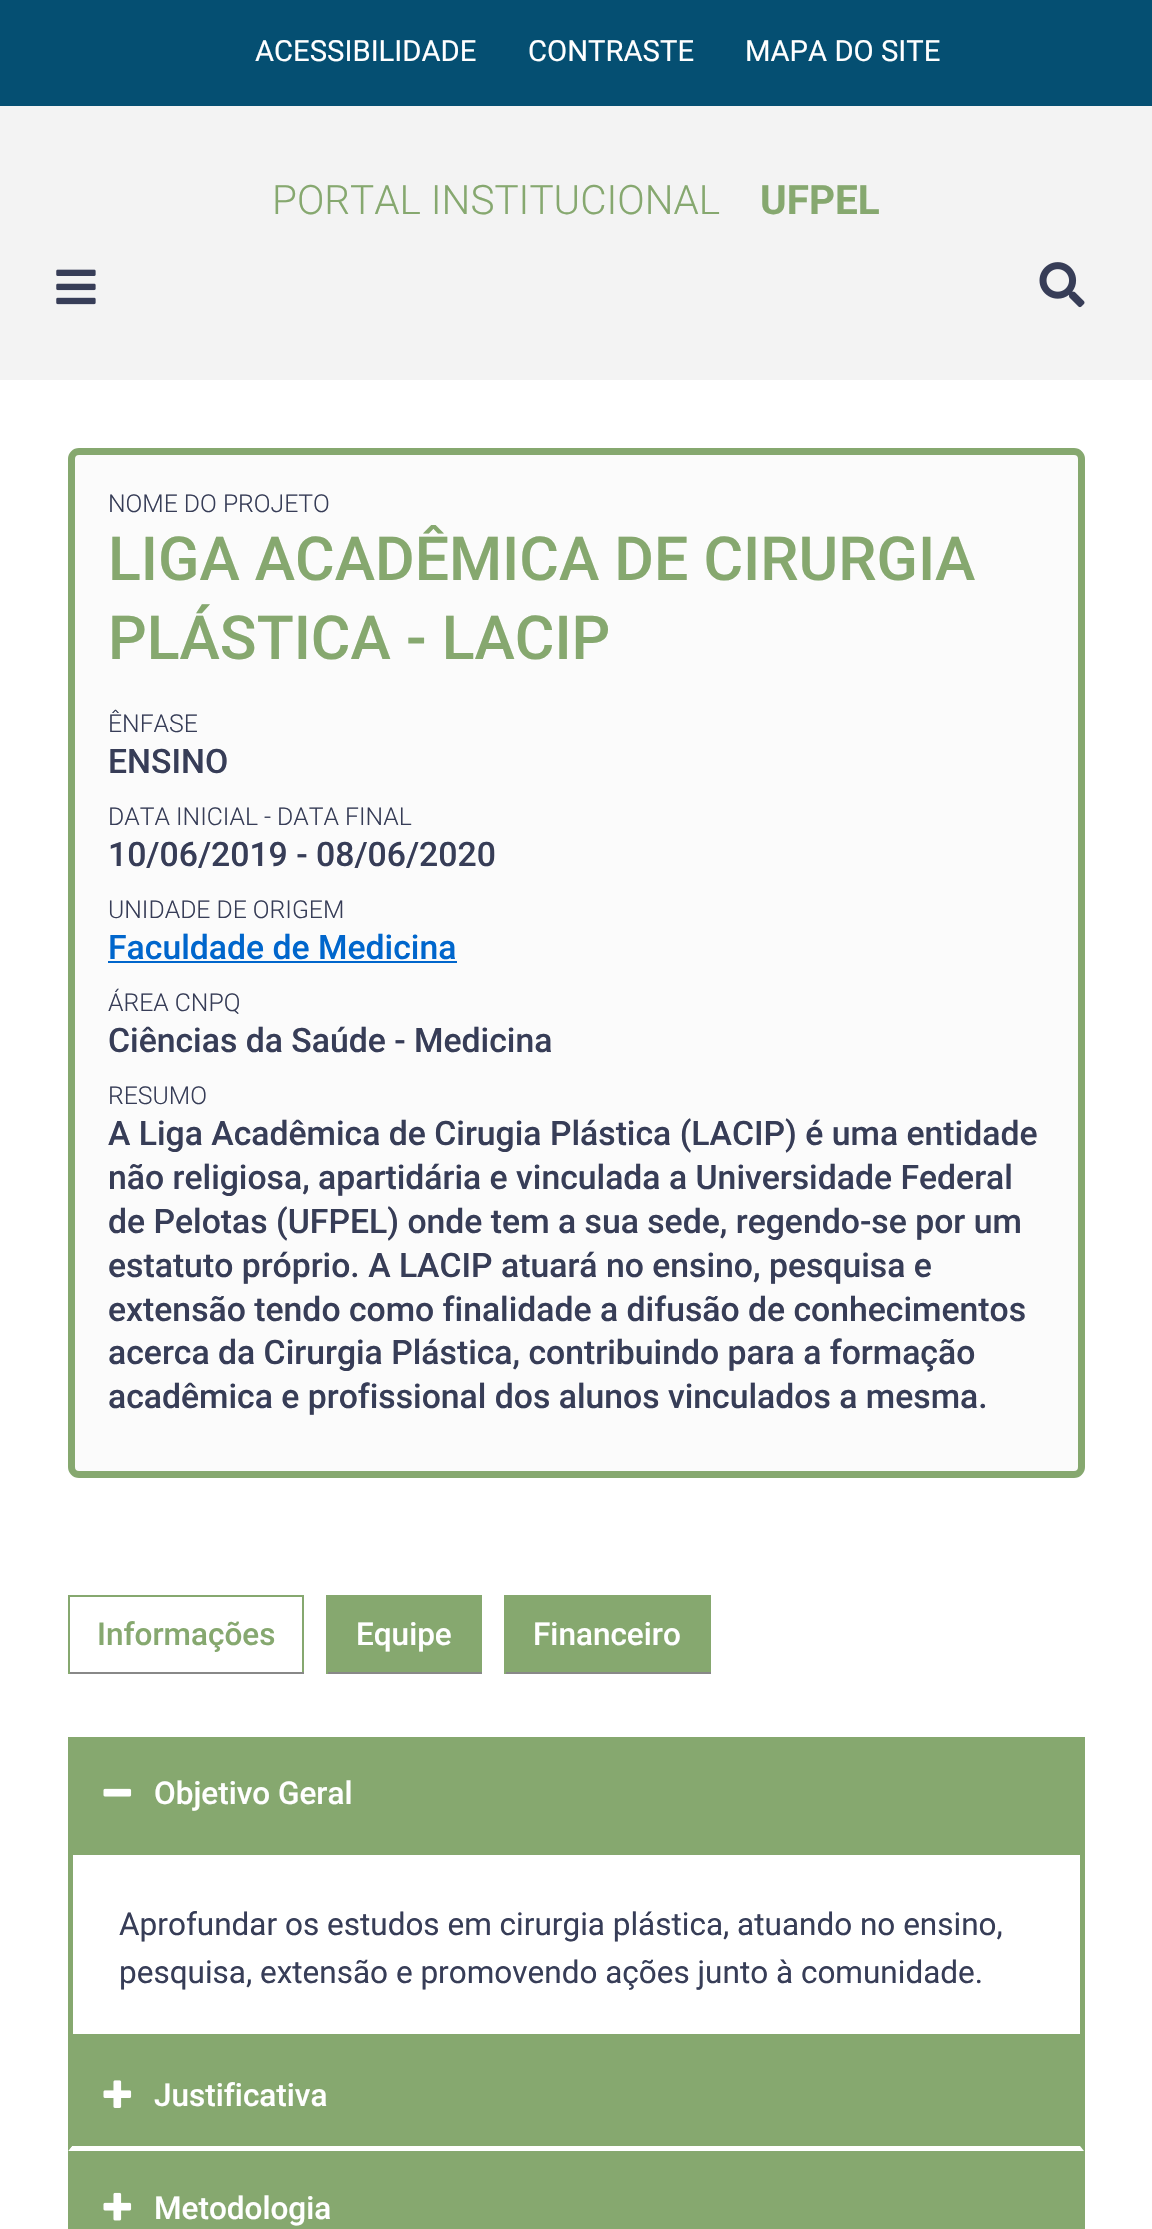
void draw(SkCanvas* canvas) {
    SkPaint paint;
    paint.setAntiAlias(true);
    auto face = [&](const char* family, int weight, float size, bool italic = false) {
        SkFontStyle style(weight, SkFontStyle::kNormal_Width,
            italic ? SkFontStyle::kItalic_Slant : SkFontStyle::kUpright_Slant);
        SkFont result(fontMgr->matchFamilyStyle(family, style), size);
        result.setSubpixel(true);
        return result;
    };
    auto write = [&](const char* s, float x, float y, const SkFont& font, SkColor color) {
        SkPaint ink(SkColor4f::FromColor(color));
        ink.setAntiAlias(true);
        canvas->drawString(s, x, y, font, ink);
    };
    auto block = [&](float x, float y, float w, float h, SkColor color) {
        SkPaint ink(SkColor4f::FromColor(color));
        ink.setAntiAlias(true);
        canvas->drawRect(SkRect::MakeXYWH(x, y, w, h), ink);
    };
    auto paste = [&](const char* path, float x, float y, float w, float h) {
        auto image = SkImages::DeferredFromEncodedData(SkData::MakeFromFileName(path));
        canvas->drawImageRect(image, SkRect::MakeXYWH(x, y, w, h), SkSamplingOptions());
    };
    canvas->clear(SK_ColorWHITE);
    block(0, 0, 1152, 106, SkColorSetRGB(5, 79, 114));
    auto kFont1 = face("Roboto", 400, 29.25f);
    write("ACESSIBILIDADE", 255, 61, kFont1, SK_ColorWHITE);
    write("CONTRASTE", 528, 61, kFont1, SK_ColorWHITE);
    write("MAPA DO SITE", 745, 61, kFont1, SK_ColorWHITE);
    block(0, 106, 1152, 274, SkColorSetRGB(243, 243, 243));
    auto kFont2 = face("Roboto", 300, 40.5f);
    write("PORTAL INSTITUCIONAL", 272, 214, kFont2, SkColorSetRGB(134, 168, 111));
    auto kFont3 = face("Roboto", 700, 40.5f);
    write("UFPEL", 760, 214, kFont3, SkColorSetRGB(134, 168, 111));
    paste("pic1.png", 56, 269, 40, 36);
    paste("pic2.png", 1039, 262, 46, 46);
    paint.setColor(SkColorSetRGB(251, 251, 251));
    canvas->drawRoundRect(SkRect::MakeXYWH(71.5f, 451.5f, 1010, 1023), 7.5f, 7.5f, paint);
    paint.setStyle(SkPaint::kStroke_Style);
    paint.setStrokeWidth(7);
    paint.setColor(SkColorSetRGB(134, 168, 111));
    canvas->drawRoundRect(SkRect::MakeXYWH(71.5f, 451.5f, 1010, 1023), 7.5f, 7.5f, paint);
    auto kFont4 = face("Roboto", 300, 24.75f);
    write("NOME DO PROJETO", 108, 512, kFont4, SkColorSetRGB(55, 61, 87));
    auto kFont5 = face("Roboto", 500, 60.75f);
    write("LIGA ACADÊMICA DE CIRURGIA", 108, 580, kFont5, SkColorSetRGB(134, 168, 111));
    write("PLÁSTICA - LACIP", 108, 659, kFont5, SkColorSetRGB(134, 168, 111));
    write("ÊNFASE", 108, 732, kFont4, SkColorSetRGB(55, 61, 87));
    auto kFont6 = face("Roboto", 500, 33.75f);
    write("ENSINO", 108, 773, kFont6, SkColorSetRGB(55, 61, 87));
    write("DATA INICIAL - DATA FINAL", 108, 825, kFont4, SkColorSetRGB(55, 61, 87));
    write("10/06/2019 - 08/06/2020", 108, 866, kFont6, SkColorSetRGB(55, 61, 87));
    write("UNIDADE DE ORIGEM", 108, 918, kFont4, SkColorSetRGB(55, 61, 87));
    write("Faculdade de Medicina", 108, 959, kFont6, SkColorSetRGB(0, 102, 204));
    block(108, 961, 349, 2, SkColorSetRGB(0, 102, 204));
    write("ÁREA CNPQ", 108, 1011, kFont4, SkColorSetRGB(55, 61, 87));
    write("Ciências da Saúde - Medicina", 108, 1052, kFont6, SkColorSetRGB(55, 61, 87));
    write("RESUMO", 108, 1104, kFont4, SkColorSetRGB(55, 61, 87));
    write("A Liga Acadêmica de Cirugia Plástica (LACIP) é uma entidade", 108, 1145, kFont6, SkColorSetRGB(55, 61, 87));
    write("não religiosa, apartidária e vinculada a Universidade Federal", 108, 1189, kFont6, SkColorSetRGB(55, 61, 87));
    write("de Pelotas (UFPEL) onde tem a sua sede, regendo-se por um", 108, 1233, kFont6, SkColorSetRGB(55, 61, 87));
    write("estatuto próprio. A LACIP atuará no ensino, pesquisa e", 108, 1277, kFont6, SkColorSetRGB(55, 61, 87));
    write("extensão tendo como finalidade a difusão de conhecimentos", 108, 1321, kFont6, SkColorSetRGB(55, 61, 87));
    write("acerca da Cirurgia Plástica, contribuindo para a formação", 108, 1364, kFont6, SkColorSetRGB(55, 61, 87));
    write("acadêmica e profissional dos alunos vinculados a mesma.", 108, 1408, kFont6, SkColorSetRGB(55, 61, 87));
    block(68, 1595, 236, 2, SkColorSetRGB(134, 168, 111));
    block(302, 1595, 2, 79, SkColorSetRGB(134, 168, 111));
    block(68, 1672, 236, 2, SkColorSetRGB(136, 136, 136));
    block(68, 1595, 2, 79, SkColorSetRGB(134, 168, 111));
    auto kFont7 = face("Roboto", 500, 31.5f);
    write("Informações", 97, 1645, kFont7, SkColorSetRGB(134, 168, 111));
    block(328, 1595, 154, 77, SkColorSetRGB(134, 168, 111));
    block(326, 1672, 156, 2, SkColorSetRGB(136, 136, 136));
    block(326, 1595, 2, 79, SkColorSetRGB(134, 168, 111));
    write("Equipe", 356, 1645, kFont7, SK_ColorWHITE);
    block(506, 1595, 205, 77, SkColorSetRGB(134, 168, 111));
    block(504, 1672, 207, 2, SkColorSetRGB(136, 136, 136));
    block(504, 1595, 2, 79, SkColorSetRGB(134, 168, 111));
    write("Financeiro", 533, 1645, kFont7, SK_ColorWHITE);
    block(68, 1737, 1017, 113, SkColorSetRGB(134, 168, 111));
    paste("pic3.png", 103, 1788, 29, 9);
    write("Objetivo Geral", 154, 1804, kFont7, SK_ColorWHITE);
    paint.setStrokeWidth(5);
    canvas->drawRect(SkRect::MakeXYWH(70.5f, 1852.5f, 1012, 184), paint);
    auto kFont8 = face("Roboto", 400, 31.5f);
    write("Aprofundar os estudos em cirurgia plástica, atuando no ensino,", 119, 1935, kFont8, SkColorSetRGB(55, 61, 87));
    write("pesquisa, extensão e promovendo ações junto à comunidade.", 119, 1983, kFont8, SkColorSetRGB(55, 61, 87));
    block(68, 2039, 1017, 190, SkColorSetRGB(134, 168, 111));
    paint.setStyle(SkPaint::kFill_Style);
    paint.setColor(SK_ColorWHITE);
    canvas->drawPath(SkPathBuilder().moveTo(1084, 2151).lineTo(68, 2151).lineTo(72, 2146).lineTo(1080, 2146).close().detach(), paint);
    paint.setColor(SkColorSetRGB(134, 168, 111));
    canvas->drawPath(SkPathBuilder().moveTo(68, 2151).lineTo(68, 2038).lineTo(72, 2043).lineTo(72, 2146).close().detach(), paint);
    paste("pic4.png", 103, 2080, 29, 28);
    write("Justificativa", 154, 2106, kFont7, SK_ColorWHITE);
    paste("pic5.png", 103, 2192, 29, 29);
    write("Metodologia", 154, 2219, kFont7, SK_ColorWHITE);
}
